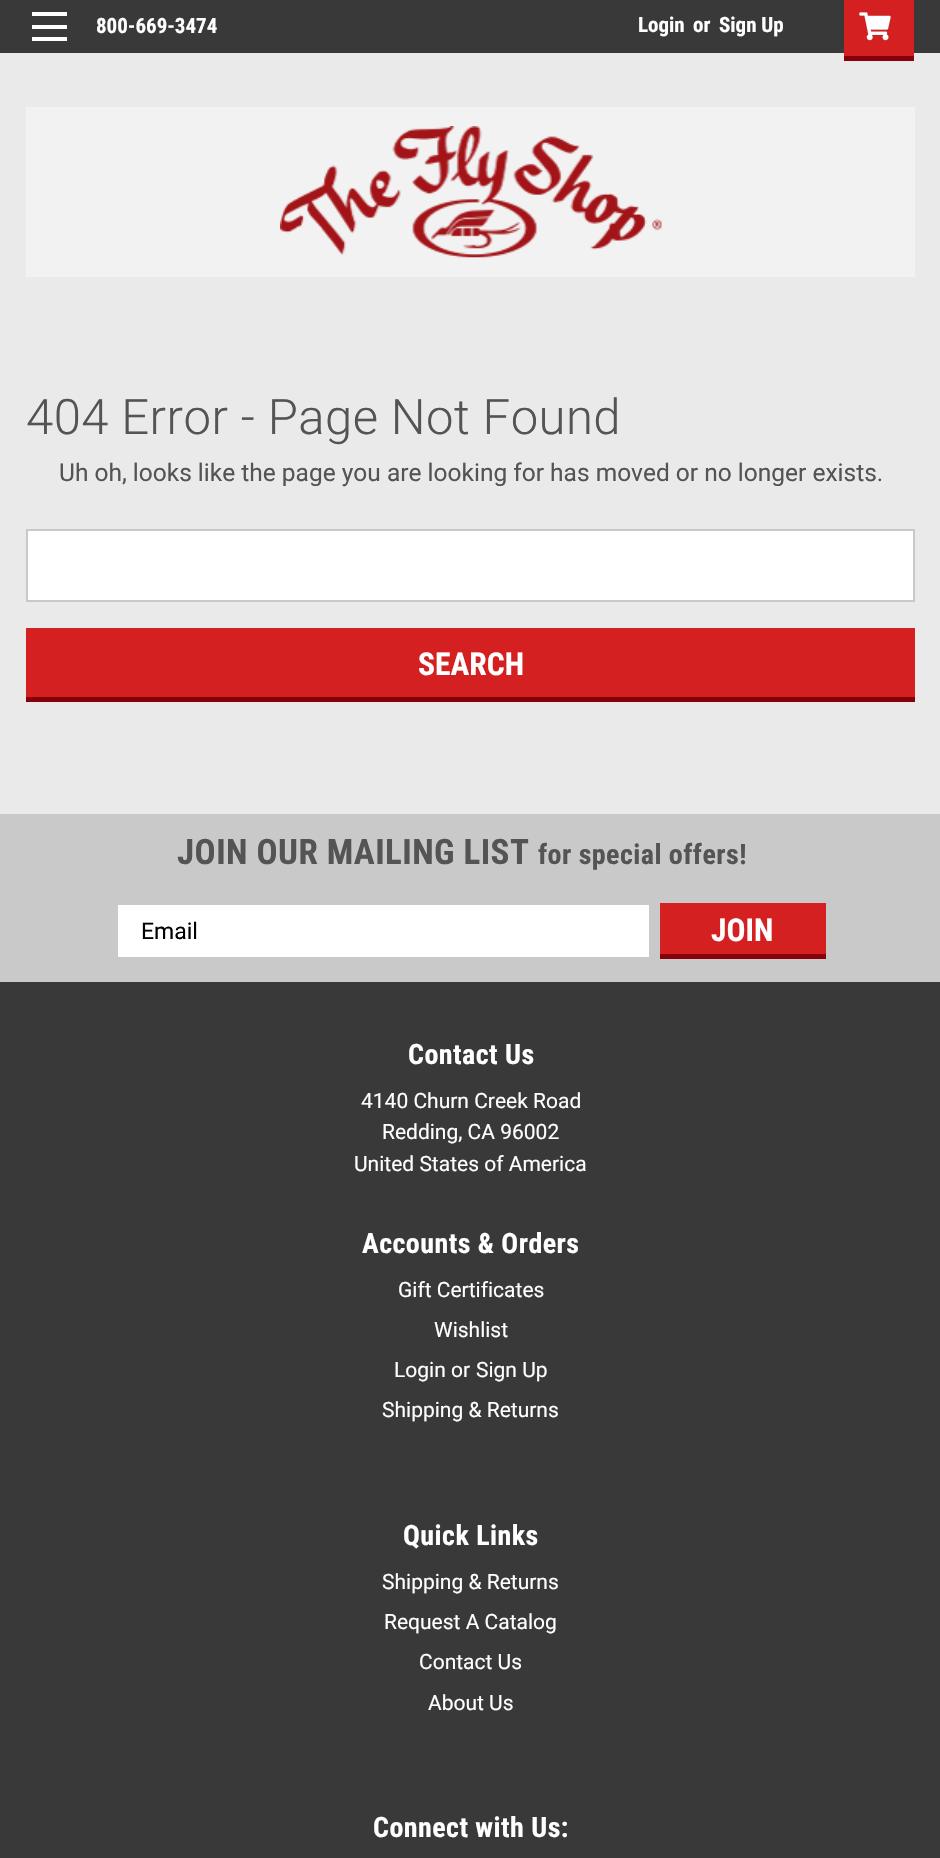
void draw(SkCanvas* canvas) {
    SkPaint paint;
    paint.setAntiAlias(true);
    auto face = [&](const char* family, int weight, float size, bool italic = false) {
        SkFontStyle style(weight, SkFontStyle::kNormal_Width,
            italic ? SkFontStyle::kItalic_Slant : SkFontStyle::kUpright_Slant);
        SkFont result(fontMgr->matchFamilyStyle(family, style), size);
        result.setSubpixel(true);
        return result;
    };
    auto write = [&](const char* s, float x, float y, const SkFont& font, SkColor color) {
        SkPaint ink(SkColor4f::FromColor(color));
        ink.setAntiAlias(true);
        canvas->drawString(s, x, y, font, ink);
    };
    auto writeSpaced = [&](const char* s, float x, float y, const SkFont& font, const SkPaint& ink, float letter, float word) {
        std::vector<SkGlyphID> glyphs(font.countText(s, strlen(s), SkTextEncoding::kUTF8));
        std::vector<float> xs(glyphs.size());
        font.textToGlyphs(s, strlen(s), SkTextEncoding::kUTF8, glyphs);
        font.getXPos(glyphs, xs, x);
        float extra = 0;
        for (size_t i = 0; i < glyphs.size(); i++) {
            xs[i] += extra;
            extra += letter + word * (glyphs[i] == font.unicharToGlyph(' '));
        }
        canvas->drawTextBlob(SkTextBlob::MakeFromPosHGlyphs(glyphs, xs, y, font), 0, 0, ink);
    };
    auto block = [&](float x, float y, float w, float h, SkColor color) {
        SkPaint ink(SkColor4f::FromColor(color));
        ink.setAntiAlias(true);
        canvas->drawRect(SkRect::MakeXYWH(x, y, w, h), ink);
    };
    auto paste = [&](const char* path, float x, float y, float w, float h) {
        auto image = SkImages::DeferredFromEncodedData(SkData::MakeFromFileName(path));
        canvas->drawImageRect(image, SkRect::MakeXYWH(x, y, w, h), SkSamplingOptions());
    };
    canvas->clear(SkColorSetRGB(234, 234, 234));
    block(0, 0, 940, 53, SkColorSetRGB(57, 57, 57));
    block(32, 25, 35, 4, SK_ColorWHITE);
    block(32, 12, 35, 4, SK_ColorWHITE);
    block(32, 37, 35, 4, SK_ColorWHITE);
    auto kFont1 = face("Roboto Condensed", 700, 21);
    write("800-669-3474", 96, 33, kFont1, SK_ColorWHITE);
    write("Login", 638, 32, kFont1, SK_ColorWHITE);
    write("or", 693, 32, kFont1, SK_ColorWHITE);
    write("Sign Up", 719, 32, kFont1, SK_ColorWHITE);
    block(844, 0, 70, 56, SkColorSetRGB(212, 32, 32));
    block(844, 56, 70, 5, SkColorSetRGB(134, 1, 9));
    paste("pic1.png", 859, 12, 32, 29);
    block(26, 107, 889, 170, SkColorSetRGB(242, 242, 242));
    paste("pic2.png", 280, 126, 382, 132);
    auto kFont2 = face("Roboto", 300, 49);
    paint.setColor(SkColorSetRGB(84, 84, 84));
    writeSpaced("404 Error - Page Not Found", 26, 434, kFont2, paint, 0.45f, 0);
    auto kFont3 = face("Roboto", 400, 24.5f);
    write("Uh oh, looks like the page you are looking for has moved or no longer exists.", 59, 481, kFont3, SkColorSetRGB(84, 84, 84));
    paint.setColor(SK_ColorWHITE);
    canvas->drawRect(SkRect::MakeXYWH(27, 530, 887, 71), paint);
    paint.setStyle(SkPaint::kStroke_Style);
    paint.setStrokeWidth(2);
    paint.setColor(SkColorSetRGB(202, 201, 201));
    canvas->drawRect(SkRect::MakeXYWH(27, 530, 887, 71), paint);
    block(26, 628, 889, 69, SkColorSetRGB(212, 32, 32));
    block(26, 697, 889, 5, SkColorSetRGB(134, 1, 9));
    auto kFont4 = face("Roboto Condensed", 700, 31.5f);
    write("SEARCH", 418, 675, kFont4, SK_ColorWHITE);
    block(0, 982, 940, 876, SkColorSetRGB(57, 57, 57));
    block(0, 814, 940, 168, SkColorSetRGB(202, 201, 201));
    auto kFont5 = face("Roboto Condensed", 700, 35);
    paint.setStyle(SkPaint::kFill_Style);
    paint.setColor(SkColorSetRGB(84, 84, 84));
    writeSpaced("JOIN OUR MAILING LIST", 177, 864, kFont5, paint, 0.45f, 0);
    auto kFont6 = face("Roboto Condensed", 700, 28);
    writeSpaced("for special offers!", 538, 864, kFont6, paint, 0.45f, 0);
    block(118, 905, 531, 52, SK_ColorWHITE);
    auto kFont7 = face("Roboto", 400, 23);
    write("Email", 141, 939, kFont7, SK_ColorBLACK);
    block(660, 903, 166, 51, SkColorSetRGB(212, 32, 32));
    block(660, 954, 166, 5, SkColorSetRGB(134, 1, 9));
    write("JOIN", 711, 941, kFont4, SK_ColorWHITE);
    paint.setColor(SK_ColorWHITE);
    writeSpaced("Contact Us", 408, 1064, kFont6, paint, 0.45f, 0);
    auto kFont8 = face("Roboto", 400, 21);
    write("4140 Churn Creek Road", 361, 1108, kFont8, SK_ColorWHITE);
    write("Redding, CA 96002", 382, 1139, kFont8, SK_ColorWHITE);
    write("United States of America", 354, 1171, kFont8, SK_ColorWHITE);
    writeSpaced("Accounts & Orders", 362, 1253, kFont6, paint, 0.45f, 0);
    write("Gift Certificates", 398, 1297, kFont8, SK_ColorWHITE);
    write("Wishlist", 434, 1337, kFont8, SK_ColorWHITE);
    write("Login or", 394, 1377, kFont8, SK_ColorWHITE);
    write("Sign Up", 476, 1377, kFont8, SK_ColorWHITE);
    write("Shipping & Returns", 382, 1417, kFont8, SK_ColorWHITE);
    writeSpaced("Quick Links", 403, 1545, kFont6, paint, 0.45f, 0);
    write("Shipping & Returns", 382, 1589, kFont8, SK_ColorWHITE);
    write("Request A Catalog", 384, 1629, kFont8, SK_ColorWHITE);
    write("Contact Us", 419, 1669, kFont8, SK_ColorWHITE);
    write("About Us", 428, 1710, kFont8, SK_ColorWHITE);
    writeSpaced("Connect with Us:", 373, 1837, kFont6, paint, 0.45f, 0);
}
